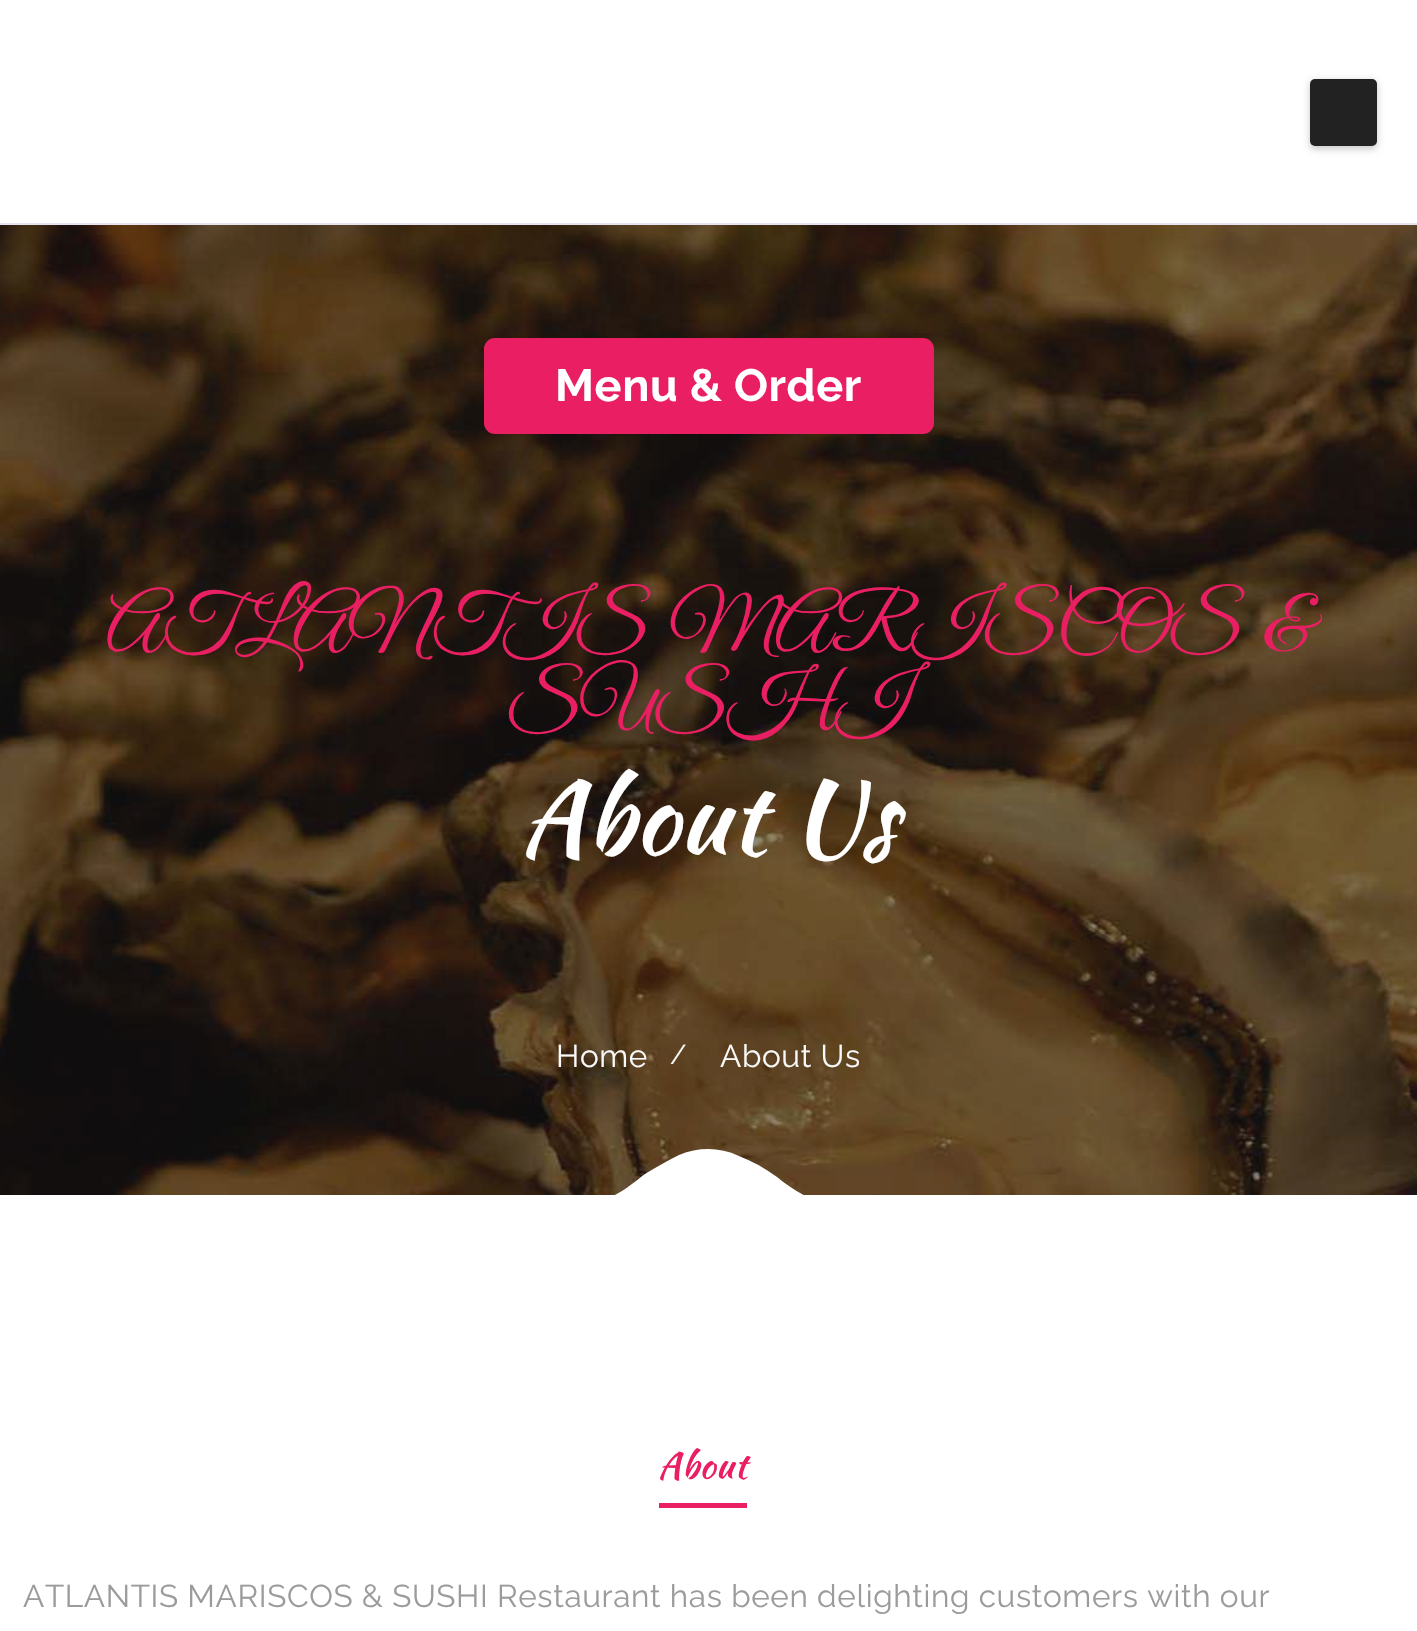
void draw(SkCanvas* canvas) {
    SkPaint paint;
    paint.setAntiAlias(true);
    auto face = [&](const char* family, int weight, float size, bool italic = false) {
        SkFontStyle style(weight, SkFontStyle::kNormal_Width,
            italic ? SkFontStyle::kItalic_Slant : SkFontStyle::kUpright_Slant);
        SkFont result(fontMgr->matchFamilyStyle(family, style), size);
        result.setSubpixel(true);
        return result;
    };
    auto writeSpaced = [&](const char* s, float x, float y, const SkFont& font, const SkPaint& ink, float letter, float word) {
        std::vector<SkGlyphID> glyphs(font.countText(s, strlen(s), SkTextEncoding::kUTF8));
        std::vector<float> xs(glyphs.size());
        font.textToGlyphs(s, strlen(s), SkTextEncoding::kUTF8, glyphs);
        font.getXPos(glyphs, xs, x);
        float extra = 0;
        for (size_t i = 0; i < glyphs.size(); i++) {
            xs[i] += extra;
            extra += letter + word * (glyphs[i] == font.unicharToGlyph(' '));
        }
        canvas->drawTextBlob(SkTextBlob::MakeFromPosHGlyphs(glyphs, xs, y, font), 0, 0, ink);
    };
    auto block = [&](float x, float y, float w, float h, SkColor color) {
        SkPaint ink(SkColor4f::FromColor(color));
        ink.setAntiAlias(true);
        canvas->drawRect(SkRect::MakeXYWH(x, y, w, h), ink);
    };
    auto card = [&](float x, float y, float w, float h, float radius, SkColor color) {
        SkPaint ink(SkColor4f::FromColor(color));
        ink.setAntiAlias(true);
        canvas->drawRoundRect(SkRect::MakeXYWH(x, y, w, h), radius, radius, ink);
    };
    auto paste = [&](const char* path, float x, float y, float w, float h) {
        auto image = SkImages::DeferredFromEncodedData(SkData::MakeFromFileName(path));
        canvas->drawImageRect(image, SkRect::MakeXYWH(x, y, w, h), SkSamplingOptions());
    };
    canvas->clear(SK_ColorWHITE);
    block(0, 223, 1417, 2, SkColorSetRGB(231, 228, 239));
    paint.setColor(SkColorSetARGB(56, 0, 0, 0));
    paint.setMaskFilter(SkMaskFilter::MakeBlur(kNormal_SkBlurStyle, 3.5f));
    canvas->drawRoundRect(SkRect::MakeXYWH(1310, 81, 67, 68), 5, 5, paint);
    paint.setMaskFilter(nullptr);
    card(1310, 79, 67, 67, 5, SkColorSetRGB(34, 34, 34));
    paste("pic1.png", 0, 225, 1417, 970);
    card(484, 338, 450, 96, 11, SkColorSetRGB(233, 30, 99));
    auto kFont1 = face("Raleway", 700, 45);
    paint.setColor(SK_ColorWHITE);
    writeSpaced("Menu & Order", 555, 401, kFont1, paint, 0.63f, 0);
    auto kFont2 = face("Great Vibes", 400, 78.75f);
    paint.setColor(SkColorSetRGB(233, 30, 99));
    writeSpaced("ATLANTIS MARISCOS &", 106, 648, kFont2, paint, 0.63f, 0);
    writeSpaced("SUSHI", 509, 727, kFont2, paint, 0.63f, 0);
    auto kFont3 = face("Kaushan Script", 400, 101);
    paint.setColor(SK_ColorWHITE);
    writeSpaced("About Us", 520, 853, kFont3, paint, 0.63f, 0);
    auto kFont4 = face("Raleway", 400, 31.5f);
    paint.setColor(SkColorSetRGB(249, 249, 249));
    writeSpaced("Home", 556, 1067, kFont4, paint, 0.63f, 0);
    auto kFont5 = face("Raleway", 400, 27);
    writeSpaced("/", 670, 1064, kFont5, paint, 0.63f, 0);
    writeSpaced("About Us", 720, 1067, kFont4, paint, 0.63f, 0);
    canvas->save();
    canvas->clipRect(SkRect::MakeXYWH(608, 1148, 202, 47));
    paint.setColor(SK_ColorWHITE);
    canvas->drawPath(SkPathBuilder().moveTo(810, 1198).lineTo(608, 1198).cubicTo(622, 1193, 633, 1183, 645, 1174).cubicTo(656, 1167, 667, 1161, 679, 1155).cubicTo(699, 1147, 719, 1147, 739, 1156).cubicTo(752, 1161, 765, 1168, 777, 1177).cubicTo(787, 1185, 798, 1193, 810, 1198).close().detach(), paint);
    canvas->restore();
    auto kFont6 = face("Kaushan Script", 400, 36);
    paint.setColor(SkColorSetRGB(233, 30, 99));
    writeSpaced("About", 658, 1478, kFont6, paint, 0.63f, 0);
    block(659, 1503, 88, 5, SkColorSetRGB(233, 30, 99));
    paint.setColor(SkColorSetRGB(155, 155, 155));
    writeSpaced("ATLANTIS MARISCOS & SUSHI Restaurant has been delighting customers with our", 23, 1607, kFont4, paint, 0.63f, 0);
}
